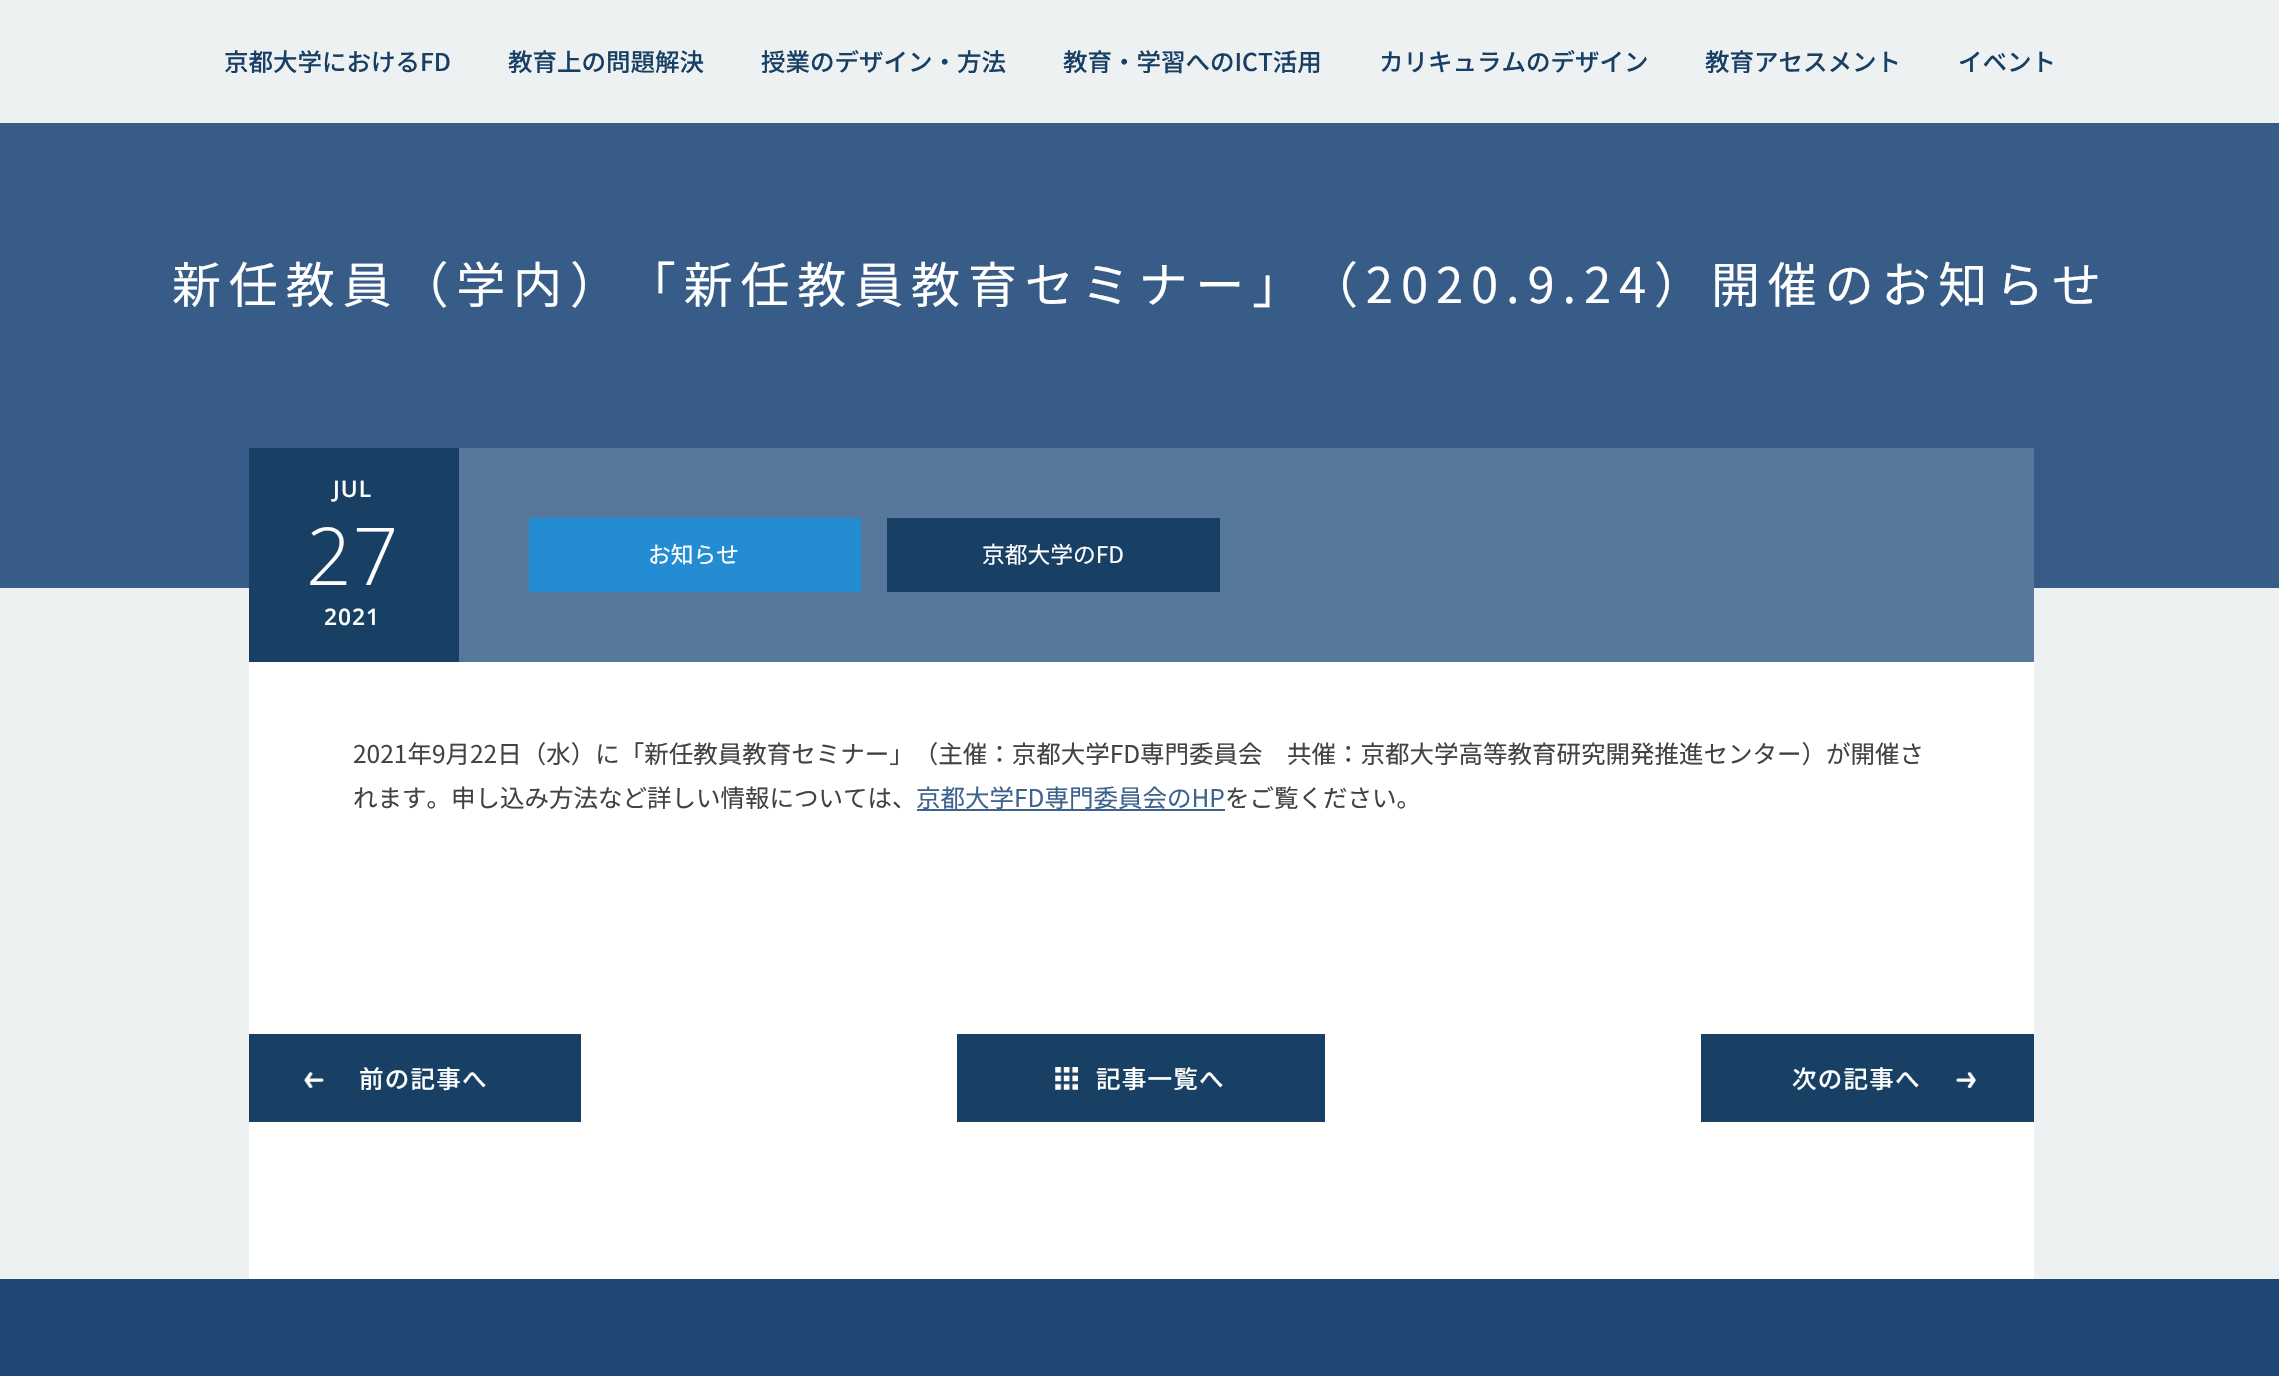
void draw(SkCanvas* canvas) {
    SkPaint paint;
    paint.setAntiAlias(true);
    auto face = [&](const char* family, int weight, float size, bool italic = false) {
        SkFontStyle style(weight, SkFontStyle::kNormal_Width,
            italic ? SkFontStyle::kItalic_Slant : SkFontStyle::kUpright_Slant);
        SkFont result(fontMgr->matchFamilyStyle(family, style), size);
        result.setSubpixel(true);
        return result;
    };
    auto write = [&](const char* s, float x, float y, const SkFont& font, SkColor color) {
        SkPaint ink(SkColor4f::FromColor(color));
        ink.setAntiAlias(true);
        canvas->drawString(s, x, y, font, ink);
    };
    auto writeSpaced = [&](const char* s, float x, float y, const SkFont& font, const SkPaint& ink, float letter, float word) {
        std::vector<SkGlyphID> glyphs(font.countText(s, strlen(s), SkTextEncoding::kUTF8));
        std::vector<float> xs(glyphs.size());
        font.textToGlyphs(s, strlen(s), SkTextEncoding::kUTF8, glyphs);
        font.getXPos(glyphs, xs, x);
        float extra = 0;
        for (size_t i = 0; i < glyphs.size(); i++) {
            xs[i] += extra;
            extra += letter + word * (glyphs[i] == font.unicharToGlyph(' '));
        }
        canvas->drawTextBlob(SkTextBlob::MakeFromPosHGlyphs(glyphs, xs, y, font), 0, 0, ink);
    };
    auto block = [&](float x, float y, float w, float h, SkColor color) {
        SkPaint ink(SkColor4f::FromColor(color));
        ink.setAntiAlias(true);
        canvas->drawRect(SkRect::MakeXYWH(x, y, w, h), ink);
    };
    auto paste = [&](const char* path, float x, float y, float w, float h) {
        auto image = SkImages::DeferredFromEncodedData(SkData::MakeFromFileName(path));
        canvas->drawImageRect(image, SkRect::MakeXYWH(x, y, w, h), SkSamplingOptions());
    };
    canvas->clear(SkColorSetRGB(238, 241, 242));
    auto kFont1 = face("Noto Sans JP", 500, 24.5f);
    write("京都大学におけるFD", 224, 71, kFont1, SkColorSetRGB(24, 63, 100));
    write("教育上の問題解決", 508, 71, kFont1, SkColorSetRGB(24, 63, 100));
    write("授業のデザイン・方法", 761, 71, kFont1, SkColorSetRGB(24, 63, 100));
    write("教育・学習へのICT活用", 1063, 71, kFont1, SkColorSetRGB(24, 63, 100));
    write("カリキュラムのデザイン", 1379, 71, kFont1, SkColorSetRGB(24, 63, 100));
    write("教育アセスメント", 1705, 71, kFont1, SkColorSetRGB(24, 63, 100));
    write("イベント", 1958, 71, kFont1, SkColorSetRGB(24, 63, 100));
    block(0, 123, 2279, 465, SkColorSetRGB(54, 92, 135));
    auto kFont2 = face("Noto Sans JP", 400, 49);
    paint.setColor(SK_ColorWHITE);
    writeSpaced("新任教員（学内）「新任教員教育セミナー」（2020.9.24）開催のお知らせ", 172, 303, kFont2, paint, 7.85f, 0);
    block(459, 448, 1575, 214, SkColorSetRGB(86, 120, 157));
    block(249, 448, 210, 214, SkColorSetRGB(24, 63, 100));
    auto kFont3 = face("Open Sans", 600, 22.75f);
    writeSpaced("JUL", 333, 497, kFont3, paint, 1, 0);
    auto kFont4 = face("Open Sans", 300, 80);
    writeSpaced("27", 306, 585, kFont4, paint, 1, 0);
    writeSpaced("2021", 324, 625, kFont3, paint, 1, 0);
    block(529, 518, 332, 74, SkColorSetRGB(36, 140, 211));
    auto kFont5 = face("Noto Sans JP", 400, 22.75f);
    write("お知らせ", 648, 563, kFont5, SK_ColorWHITE);
    block(887, 518, 333, 74, SkColorSetRGB(24, 63, 100));
    write("京都大学のFD", 982, 563, kFont5, SK_ColorWHITE);
    block(249, 662, 1785, 617, SK_ColorWHITE);
    auto kFont6 = face("Noto Sans JP", 400, 24.5f);
    write("2021年9月22日（水）に「新任教員教育セミナー」（主催：京都大学FD専門委員会　共催：京都大学高等教育研究開発推進センター）が開催さ", 353, 763, kFont6, SkColorSetRGB(66, 66, 66));
    write("れます。申し込み方法など詳しい情報については、", 353, 807, kFont6, SkColorSetRGB(66, 66, 66));
    write("京都大学FD専門委員会のHP", 916, 807, kFont6, SkColorSetRGB(61, 98, 140));
    block(917, 809, 308, 2, SkColorSetRGB(61, 98, 140));
    write("をご覧ください。", 1225, 807, kFont6, SkColorSetRGB(66, 66, 66));
    block(249, 1034, 332, 88, SkColorSetRGB(24, 63, 100));
    paste("pic1.png", 304, 1072, 20, 16);
    writeSpaced("前の記事へ", 359, 1088, kFont1, paint, 1.25f, 0);
    block(957, 1034, 368, 88, SkColorSetRGB(24, 63, 100));
    paste("pic2.png", 1055, 1067, 23, 23);
    writeSpaced("記事一覧へ", 1096, 1088, kFont1, paint, 1.25f, 0);
    block(1701, 1034, 333, 88, SkColorSetRGB(24, 63, 100));
    writeSpaced("次の記事へ", 1792, 1088, kFont1, paint, 1.25f, 0);
    paste("pic3.png", 1956, 1072, 20, 16);
    block(0, 1279, 2279, 97, SkColorSetRGB(31, 72, 118));
}
